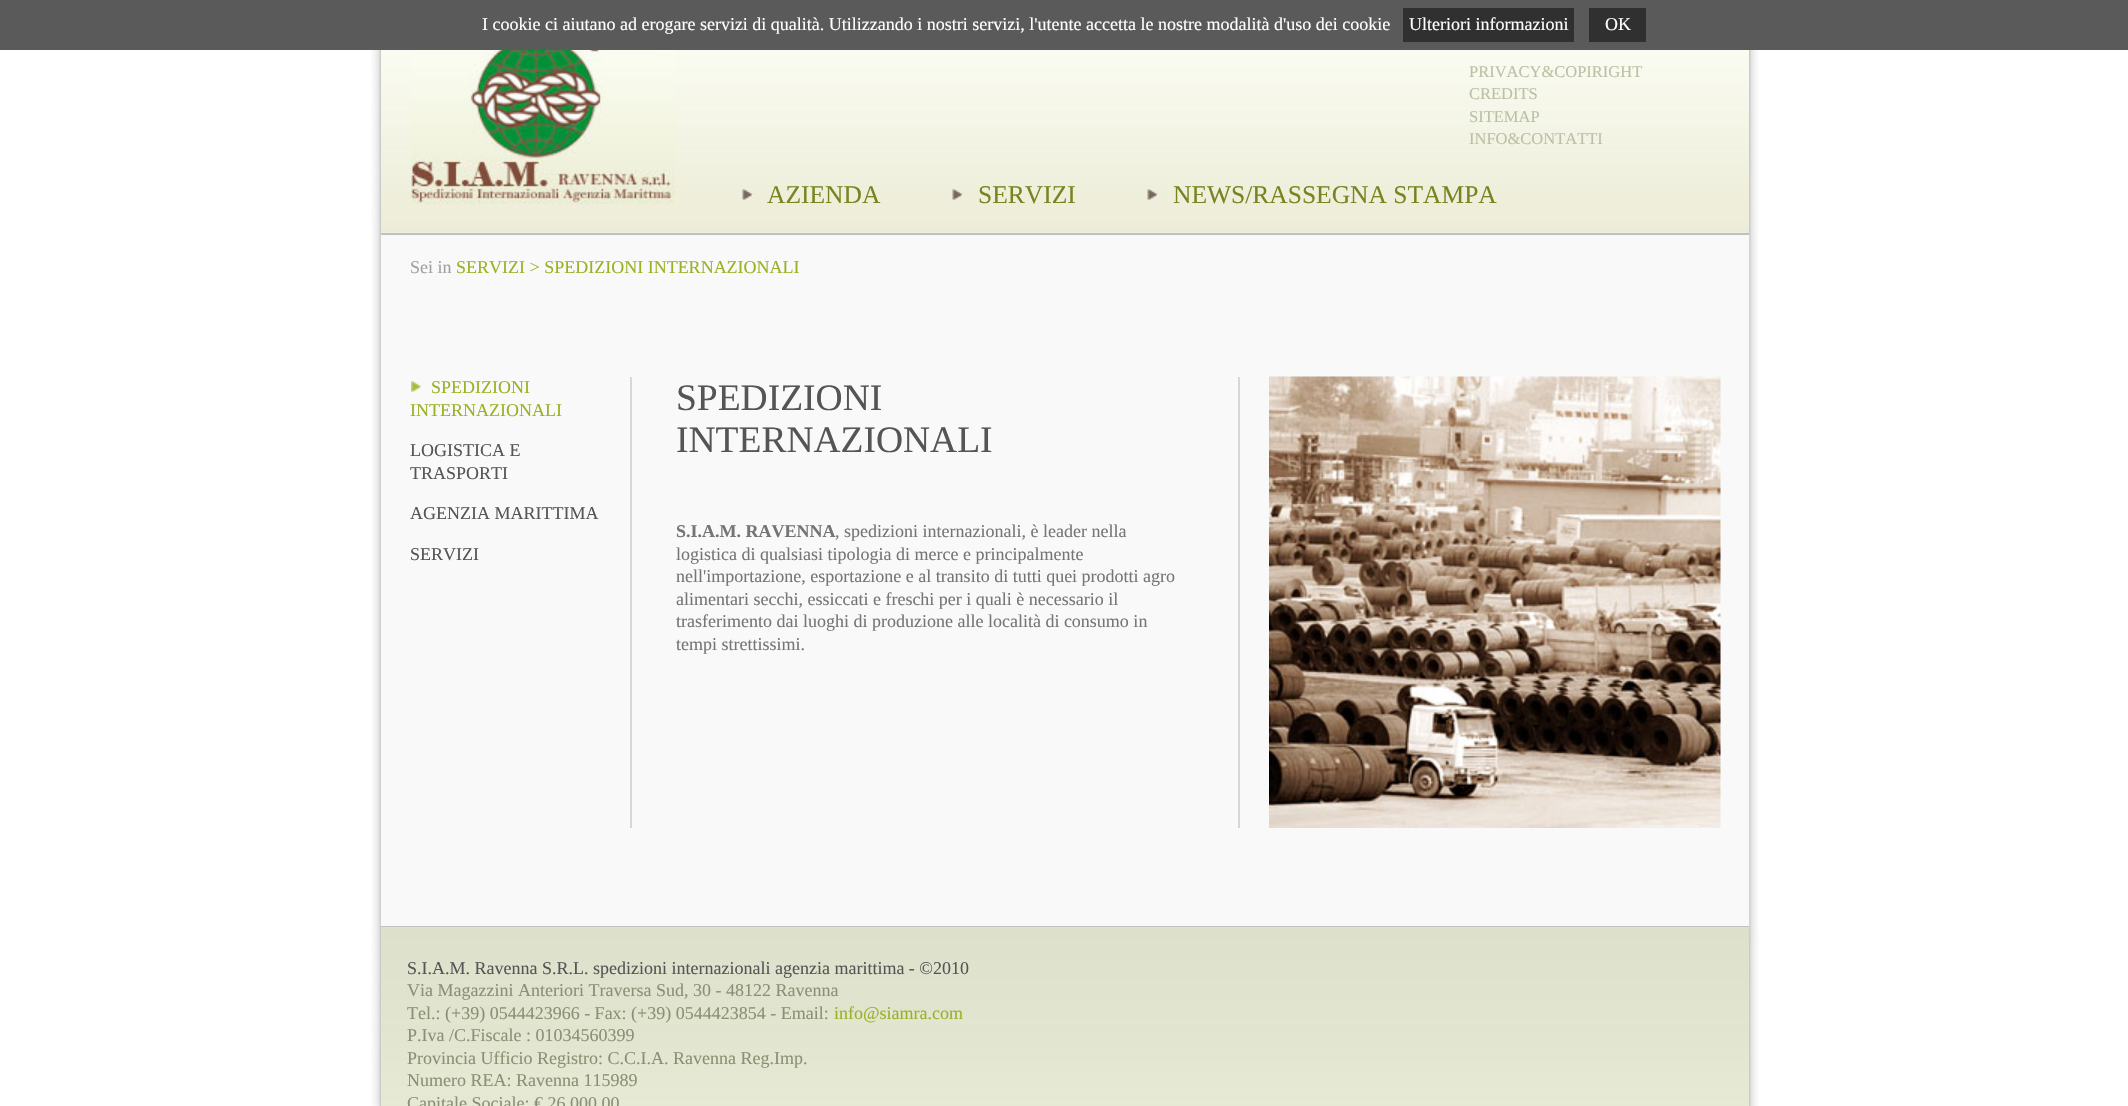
void draw(SkCanvas* canvas) {
    SkPaint paint;
    paint.setAntiAlias(true);
    auto face = [&](const char* family, int weight, float size, bool italic = false) {
        SkFontStyle style(weight, SkFontStyle::kNormal_Width,
            italic ? SkFontStyle::kItalic_Slant : SkFontStyle::kUpright_Slant);
        SkFont result(fontMgr->matchFamilyStyle(family, style), size);
        result.setSubpixel(true);
        return result;
    };
    auto write = [&](const char* s, float x, float y, const SkFont& font, SkColor color) {
        SkPaint ink(SkColor4f::FromColor(color));
        ink.setAntiAlias(true);
        canvas->drawString(s, x, y, font, ink);
    };
    auto block = [&](float x, float y, float w, float h, SkColor color) {
        SkPaint ink(SkColor4f::FromColor(color));
        ink.setAntiAlias(true);
        canvas->drawRect(SkRect::MakeXYWH(x, y, w, h), ink);
    };
    auto paste = [&](const char* path, float x, float y, float w, float h) {
        auto image = SkImages::DeferredFromEncodedData(SkData::MakeFromFileName(path));
        canvas->drawImageRect(image, SkRect::MakeXYWH(x, y, w, h), SkSamplingOptions());
    };
    canvas->clear(SK_ColorWHITE);
    paste("pic1.png", 375, 232, 1381, 1);
    block(0, 0, 2128, 50, SkColorSetRGB(90, 90, 90));
    auto kFont1 = face("Liberation Serif", 400, 18);
    write("I cookie ci aiutano ad erogare servizi di qualità. Utilizzando i nostri servizi, l'utente accetta le nostre modalità d'uso dei cookie", 482, 30, kFont1, SK_ColorWHITE);
    block(1403, 8, 171, 34, SkColorSetRGB(48, 48, 48));
    write("Ulteriori informazioni", 1409, 30, kFont1, SK_ColorWHITE);
    block(1589, 8, 57, 34, SkColorSetRGB(48, 48, 48));
    write("OK", 1605, 30, kFont1, SK_ColorWHITE);
    paste("pic8.png", 372, 232, 1386, 695);
    paste("pic2.png", 371, 50, 10, 183);
    paste("pic3.png", 381, 50, 1368, 183);
    paste("pic4.png", 411, 50, 264, 154);
    auto kFont2 = face("Liberation Serif", 400, 16.5f);
    write("PRIVACY&COPIRIGHT", 1469, 77, kFont2, SkColorSetRGB(188, 193, 166));
    write("CREDITS", 1469, 99, kFont2, SkColorSetRGB(188, 193, 166));
    write("SITEMAP", 1469, 122, kFont2, SkColorSetRGB(188, 193, 166));
    write("INFO&CONTATTI", 1469, 144, kFont2, SkColorSetRGB(188, 193, 166));
    paste("pic5.png", 742, 189, 11, 11);
    auto kFont3 = face("Liberation Serif", 400, 25.5f);
    write("AZIENDA", 767, 203, kFont3, SkColorSetRGB(119, 133, 33));
    paste("pic6.png", 952, 189, 11, 11);
    write("SERVIZI", 978, 203, kFont3, SkColorSetRGB(119, 133, 33));
    paste("pic5.png", 1147, 189, 11, 11);
    write("NEWS/RASSEGNA STAMPA", 1173, 203, kFont3, SkColorSetRGB(119, 133, 33));
    paste("pic7.png", 1749, 50, 10, 183);
    block(381, 235, 1368, 691, SkColorSetRGB(249, 249, 249));
    block(381, 233, 1368, 2, SkColorSetRGB(192, 192, 192));
    block(381, 926, 1368, 1, SkColorSetRGB(192, 192, 192));
    write("Sei in", 410, 273, kFont1, SkColorSetRGB(162, 160, 160));
    write("SERVIZI > SPEDIZIONI INTERNAZIONALI", 456, 273, kFont1, SkColorSetRGB(153, 178, 37));
    paste("pic9.png", 411, 381, 11, 12);
    write("SPEDIZIONI", 431, 393, kFont1, SkColorSetRGB(153, 178, 37));
    write("INTERNAZIONALI", 410, 416, kFont1, SkColorSetRGB(153, 178, 37));
    write("LOGISTICA E", 410, 456, kFont1, SkColorSetRGB(85, 85, 85));
    write("TRASPORTI", 410, 479, kFont1, SkColorSetRGB(85, 85, 85));
    write("AGENZIA MARITTIMA", 410, 519, kFont1, SkColorSetRGB(85, 85, 85));
    write("SERVIZI", 410, 560, kFont1, SkColorSetRGB(85, 85, 85));
    block(630, 377, 2, 451, SkColorSetRGB(215, 215, 215));
    auto kFont4 = face("Liberation Serif", 400, 37.5f);
    write("SPEDIZIONI", 676, 410, kFont4, SkColorSetRGB(85, 85, 85));
    write("INTERNAZIONALI", 676, 452, kFont4, SkColorSetRGB(85, 85, 85));
    auto kFont5 = face("Liberation Serif", 700, 18);
    write("S.I.A.M. RAVENNA", 676, 537, kFont5, SkColorSetRGB(117, 117, 117));
    write(", spedizioni internazionali, è leader nella", 835, 537, kFont1, SkColorSetRGB(117, 117, 117));
    write("logistica di qualsiasi tipologia di merce e principalmente", 676, 560, kFont1, SkColorSetRGB(117, 117, 117));
    write("nell'importazione, esportazione e al transito di tutti quei prodotti agro", 676, 582, kFont1, SkColorSetRGB(117, 117, 117));
    write("alimentari secchi, essiccati e freschi per i quali è necessario il", 676, 605, kFont1, SkColorSetRGB(117, 117, 117));
    write("trasferimento dai luoghi di produzione alle località di consumo in", 676, 627, kFont1, SkColorSetRGB(117, 117, 117));
    write("tempi strettissimi.", 676, 650, kFont1, SkColorSetRGB(117, 117, 117));
    block(1238, 377, 2, 451, SkColorSetRGB(215, 215, 215));
    paste("pic10.png", 1269, 376, 452, 452);
    paste("pic11.png", 371, 927, 10, 179);
    paste("pic12.png", 381, 927, 1368, 179);
    write("S.I.A.M. Ravenna S.R.L. spedizioni internazionali agenzia marittima - ©2010", 407, 974, kFont1, SkColorSetRGB(85, 85, 85));
    write("Via Magazzini Anteriori Traversa Sud, 30 - 48122 Ravenna", 407, 996, kFont1, SkColorSetRGB(139, 144, 116));
    write("Tel.: (+39) 0544423966 - Fax: (+39) 0544423854 - Email:", 407, 1019, kFont1, SkColorSetRGB(139, 144, 116));
    write("info@siamra.com", 834, 1019, kFont1, SkColorSetRGB(153, 178, 37));
    write("P.Iva /C.Fiscale : 01034560399", 407, 1041, kFont1, SkColorSetRGB(139, 144, 116));
    write("Provincia Ufficio Registro: C.C.I.A. Ravenna Reg.Imp.", 407, 1064, kFont1, SkColorSetRGB(139, 144, 116));
    write("Numero REA: Ravenna 115989", 407, 1086, kFont1, SkColorSetRGB(139, 144, 116));
    write("Capitale Sociale: € 26.000,00", 407, 1109, kFont1, SkColorSetRGB(139, 144, 116));
    paste("pic13.png", 1749, 927, 10, 179);
}
